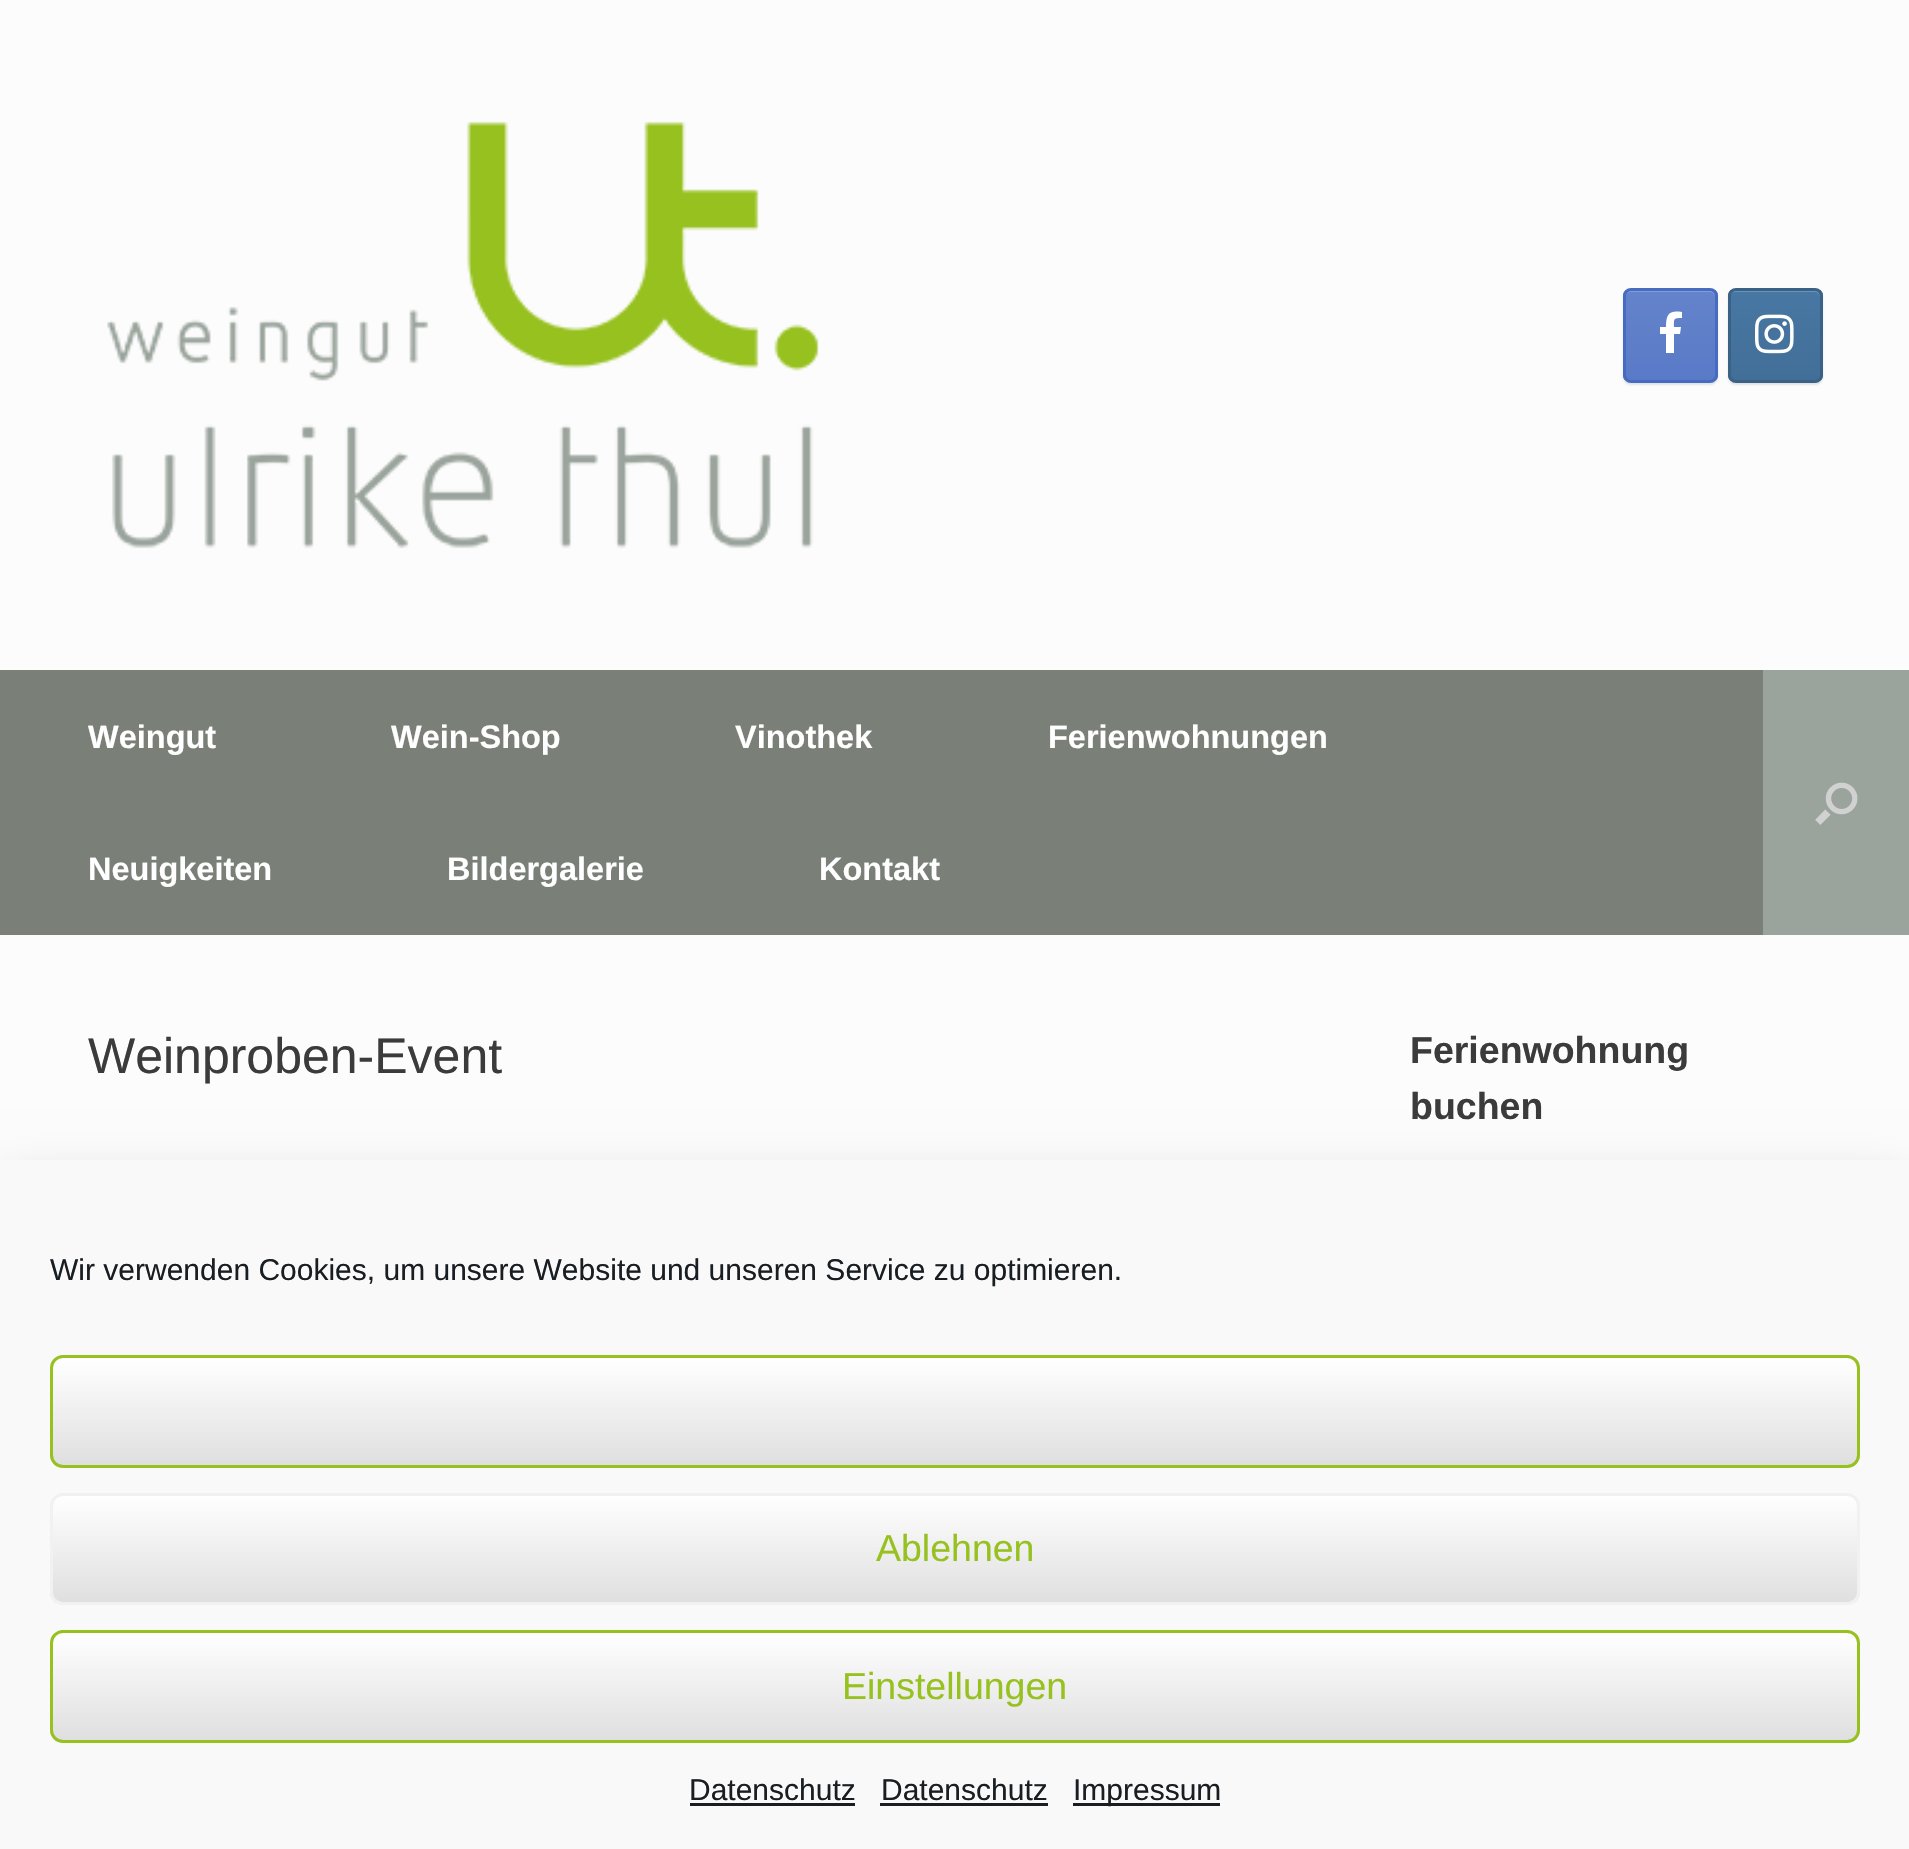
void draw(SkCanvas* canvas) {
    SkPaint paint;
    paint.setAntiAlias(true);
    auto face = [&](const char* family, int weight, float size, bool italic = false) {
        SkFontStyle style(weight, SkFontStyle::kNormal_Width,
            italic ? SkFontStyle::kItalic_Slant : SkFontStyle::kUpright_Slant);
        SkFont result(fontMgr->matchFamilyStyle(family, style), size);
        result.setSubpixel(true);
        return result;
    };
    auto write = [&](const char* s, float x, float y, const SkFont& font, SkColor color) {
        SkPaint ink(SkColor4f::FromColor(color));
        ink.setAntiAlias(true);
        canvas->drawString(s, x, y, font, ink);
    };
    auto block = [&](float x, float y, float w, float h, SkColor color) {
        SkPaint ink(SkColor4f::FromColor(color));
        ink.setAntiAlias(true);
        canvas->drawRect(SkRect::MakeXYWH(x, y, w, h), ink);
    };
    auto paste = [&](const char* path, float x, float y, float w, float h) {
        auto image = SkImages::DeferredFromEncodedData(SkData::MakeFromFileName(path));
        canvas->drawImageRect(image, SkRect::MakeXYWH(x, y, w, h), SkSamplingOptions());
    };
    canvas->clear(SkColorSetRGB(252, 252, 252));
    paste("pic1.png", 107, 121, 712, 428);
    paint.setColor(SkColorSetARGB(26, 0, 0, 0));
    paint.setMaskFilter(SkMaskFilter::MakeBlur(kNormal_SkBlurStyle, 1));
    canvas->drawRoundRect(SkRect::MakeXYWH(1623, 290, 95, 95), 8, 8, paint);
    paint.setMaskFilter(nullptr);
    canvas->save();
    canvas->clipPath(SkPathBuilder().moveTo(1631, 288).lineTo(1710, 288).cubicTo(1714.5f, 288, 1718, 291.5f, 1718, 296).lineTo(1718, 375).cubicTo(1718, 379.5f, 1714.5f, 383, 1710, 383).lineTo(1631, 383).cubicTo(1626.5f, 383, 1623, 379.5f, 1623, 375).lineTo(1623, 296).cubicTo(1623, 291.5f, 1626.5f, 288, 1631, 288).close().detach(), true);
    {
        const SkColor colors[] = {SkColorSetRGB(89, 122, 199), SkColorSetRGB(100, 131, 203)};
        const float stops[] = {0, 1};
        const SkPoint ends[] = {{1670, 380}, {1670, 290}};
        paint.setShader(SkGradientShader::MakeLinear(ends, colors, stops, 2, SkTileMode::kClamp));
        paint.setAlpha(255);
    }
    canvas->drawRect(SkRect::MakeXYWH(1623, 290, 95, 90), paint);
    canvas->restore();
    paint.setShader(nullptr);
    paint.setColor(SkColorSetRGB(131, 156, 213));
    canvas->drawPath(SkPathBuilder().moveTo(1630, 292).lineTo(1710, 292).cubicTo(1713, 292, 1715, 295, 1715, 298).cubicTo(1715, 287, 1707, 290, 1697, 290).lineTo(1643, 290).cubicTo(1633, 290, 1625, 287, 1625, 298).cubicTo(1625, 295, 1627, 292, 1630, 292).close().detach(), paint);
    paint.setStyle(SkPaint::kStroke_Style);
    paint.setStrokeWidth(3);
    paint.setColor(SkColorSetRGB(70, 107, 193));
    canvas->drawRoundRect(SkRect::MakeXYWH(1624.5f, 289.5f, 92, 92), 6.5f, 6.5f, paint);
    paint.setStyle(SkPaint::kFill_Style);
    paint.setColor(SK_ColorWHITE);
    canvas->drawPath(SkPathBuilder().moveTo(1682, 312).cubicTo(1669, 310, 1666, 314, 1666, 327).lineTo(1660, 327).lineTo(1660, 334).lineTo(1666, 334).lineTo(1666, 353).lineTo(1674, 353).lineTo(1674, 334).lineTo(1680, 334).lineTo(1681, 327).lineTo(1674, 327).cubicTo(1674, 319, 1673, 318, 1682, 318).close().detach(), paint);
    paint.setColor(SkColorSetARGB(26, 0, 0, 0));
    paint.setMaskFilter(SkMaskFilter::MakeBlur(kNormal_SkBlurStyle, 1));
    canvas->drawRoundRect(SkRect::MakeXYWH(1728, 290, 95, 95), 8, 8, paint);
    paint.setMaskFilter(nullptr);
    canvas->save();
    canvas->clipPath(SkPathBuilder().moveTo(1736, 288).lineTo(1815, 288).cubicTo(1819.5f, 288, 1823, 291.5f, 1823, 296).lineTo(1823, 375).cubicTo(1823, 379.5f, 1819.5f, 383, 1815, 383).lineTo(1736, 383).cubicTo(1731.5f, 383, 1728, 379.5f, 1728, 375).lineTo(1728, 296).cubicTo(1728, 291.5f, 1731.5f, 288, 1736, 288).close().detach(), true);
    {
        const SkColor colors[] = {SkColorSetRGB(66, 111, 152), SkColorSetRGB(71, 119, 163)};
        const float stops[] = {0, 1};
        const SkPoint ends[] = {{1775, 380}, {1775, 290}};
        paint.setShader(SkGradientShader::MakeLinear(ends, colors, stops, 2, SkTileMode::kClamp));
        paint.setAlpha(255);
    }
    canvas->drawRect(SkRect::MakeXYWH(1728, 290, 95, 90), paint);
    canvas->restore();
    paint.setShader(nullptr);
    paint.setColor(SkColorSetRGB(108, 146, 181));
    canvas->drawPath(SkPathBuilder().moveTo(1735, 292).lineTo(1815, 292).cubicTo(1818, 292, 1820, 295, 1820, 298).cubicTo(1820, 287, 1812, 290, 1802, 290).lineTo(1748, 290).cubicTo(1738, 290, 1730, 287, 1730, 298).cubicTo(1730, 295, 1732, 292, 1735, 292).close().detach(), paint);
    paint.setStyle(SkPaint::kStroke_Style);
    paint.setColor(SkColorSetRGB(58, 98, 134));
    canvas->drawRoundRect(SkRect::MakeXYWH(1729.5f, 289.5f, 92, 92), 6.5f, 6.5f, paint);
    paste("pic2.png", 1755, 314, 39, 40);
    block(0, 670, 1763, 265, SkColorSetRGB(122, 128, 119));
    auto kFont1 = face("Liberation Sans", 700, 32.5f);
    write("Weingut", 88, 748, kFont1, SK_ColorWHITE);
    write("Wein-Shop", 391, 748, kFont1, SK_ColorWHITE);
    write("Vinothek", 735, 748, kFont1, SK_ColorWHITE);
    write("Ferienwohnungen", 1048, 748, kFont1, SK_ColorWHITE);
    write("Neuigkeiten", 88, 880, kFont1, SK_ColorWHITE);
    write("Bildergalerie", 447, 880, kFont1, SK_ColorWHITE);
    write("Kontakt", 819, 880, kFont1, SK_ColorWHITE);
    block(1763, 670, 146, 265, SkColorSetRGB(154, 164, 156));
    paste("pic3.png", 1815, 782, 43, 43);
    auto kFont2 = face("Liberation Sans", 400, 50);
    write("Weinproben-Event", 88, 1073, kFont2, SkColorSetRGB(59, 59, 59));
    auto kFont3 = face("Liberation Sans", 700, 37.5f);
    write("Ferienwohnung", 1410, 1063, kFont3, SkColorSetRGB(59, 59, 59));
    write("buchen", 1410, 1119, kFont3, SkColorSetRGB(59, 59, 59));
    paint.setStyle(SkPaint::kFill_Style);
    paint.setColor(SkColorSetARGB(48, 0, 0, 0));
    paint.setMaskFilter(SkMaskFilter::MakeBlur(kNormal_SkBlurStyle, 25));
    canvas->drawRect(SkRect::MakeXYWH(0, 1185, 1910, 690), paint);
    paint.setMaskFilter(nullptr);
    block(0, 1160, 1909, 689, SkColorSetRGB(249, 249, 249));
    auto kFont4 = face("Liberation Sans", 400, 30);
    write("Wir verwenden Cookies, um unsere Website und unseren Service zu optimieren.", 50, 1280, kFont4, SkColorSetRGB(25, 30, 35));
    canvas->save();
    canvas->clipPath(SkPathBuilder().moveTo(63, 1355).lineTo(1847, 1355).cubicTo(1854, 1355, 1860, 1361, 1860, 1368).lineTo(1860, 1455).cubicTo(1860, 1462, 1854, 1468, 1847, 1468).lineTo(63, 1468).cubicTo(56, 1468, 50, 1462, 50, 1455).lineTo(50, 1368).cubicTo(50, 1361, 56, 1355, 63, 1355).close().detach(), true);
    {
        const SkColor colors[] = {SkColorSetRGB(223, 223, 223), SK_ColorWHITE};
        const float stops[] = {0, 1};
        const SkPoint ends[] = {{53, 1465}, {53, 1358}};
        paint.setShader(SkGradientShader::MakeLinear(ends, colors, stops, 2, SkTileMode::kClamp));
        paint.setAlpha(255);
    }
    canvas->drawRect(SkRect::MakeXYWH(50, 1358, 1810, 107), paint);
    canvas->restore();
    paint.setStyle(SkPaint::kStroke_Style);
    paint.setShader(nullptr);
    paint.setColor(SkColorSetRGB(150, 193, 31));
    canvas->drawRoundRect(SkRect::MakeXYWH(51.5f, 1356.5f, 1807, 110), 11.5f, 11.5f, paint);
    canvas->save();
    canvas->clipPath(SkPathBuilder().moveTo(63, 1493).lineTo(1847, 1493).cubicTo(1854, 1493, 1860, 1499, 1860, 1506).lineTo(1860, 1592).cubicTo(1860, 1599, 1854, 1605, 1847, 1605).lineTo(63, 1605).cubicTo(56, 1605, 50, 1599, 50, 1592).lineTo(50, 1506).cubicTo(50, 1499, 56, 1493, 63, 1493).close().detach(), true);
    paint.setStyle(SkPaint::kFill_Style);
    {
        const SkColor colors[] = {SkColorSetRGB(223, 223, 223), SK_ColorWHITE};
        const float stops[] = {0, 1};
        const SkPoint ends[] = {{53, 1603}, {53, 1495}};
        paint.setShader(SkGradientShader::MakeLinear(ends, colors, stops, 2, SkTileMode::kClamp));
        paint.setAlpha(255);
    }
    canvas->drawRect(SkRect::MakeXYWH(50, 1495, 1810, 108), paint);
    canvas->restore();
    paint.setStyle(SkPaint::kStroke_Style);
    paint.setShader(nullptr);
    paint.setColor(SkColorSetRGB(241, 241, 241));
    canvas->drawRoundRect(SkRect::MakeXYWH(51.5f, 1494.5f, 1807, 109), 11.5f, 11.5f, paint);
    auto kFont5 = face("Liberation Sans", 400, 37.5f);
    write("Ablehnen", 876, 1561, kFont5, SkColorSetRGB(150, 193, 31));
    canvas->save();
    canvas->clipPath(SkPathBuilder().moveTo(63, 1630).lineTo(1847, 1630).cubicTo(1854, 1630, 1860, 1636, 1860, 1643).lineTo(1860, 1730).cubicTo(1860, 1737, 1854, 1743, 1847, 1743).lineTo(63, 1743).cubicTo(56, 1743, 50, 1737, 50, 1730).lineTo(50, 1643).cubicTo(50, 1636, 56, 1630, 63, 1630).close().detach(), true);
    paint.setStyle(SkPaint::kFill_Style);
    {
        const SkColor colors[] = {SkColorSetRGB(223, 223, 223), SK_ColorWHITE};
        const float stops[] = {0, 1};
        const SkPoint ends[] = {{53, 1740}, {53, 1633}};
        paint.setShader(SkGradientShader::MakeLinear(ends, colors, stops, 2, SkTileMode::kClamp));
        paint.setAlpha(255);
    }
    canvas->drawRect(SkRect::MakeXYWH(50, 1633, 1810, 107), paint);
    canvas->restore();
    paint.setStyle(SkPaint::kStroke_Style);
    paint.setShader(nullptr);
    paint.setColor(SkColorSetRGB(150, 193, 31));
    canvas->drawRoundRect(SkRect::MakeXYWH(51.5f, 1631.5f, 1807, 110), 11.5f, 11.5f, paint);
    write("Einstellungen", 842, 1699, kFont5, SkColorSetRGB(150, 193, 31));
    write("Datenschutz", 689, 1800, kFont4, SkColorSetRGB(25, 30, 35));
    block(690, 1803, 165, 3, SkColorSetRGB(25, 30, 35));
    write("Datenschutz", 881, 1800, kFont4, SkColorSetRGB(25, 30, 35));
    block(880, 1803, 168, 3, SkColorSetRGB(25, 30, 35));
    block(1073, 1803, 147, 3, SkColorSetRGB(25, 30, 35));
    write("Impressum", 1073, 1800, kFont4, SkColorSetRGB(25, 30, 35));
}
